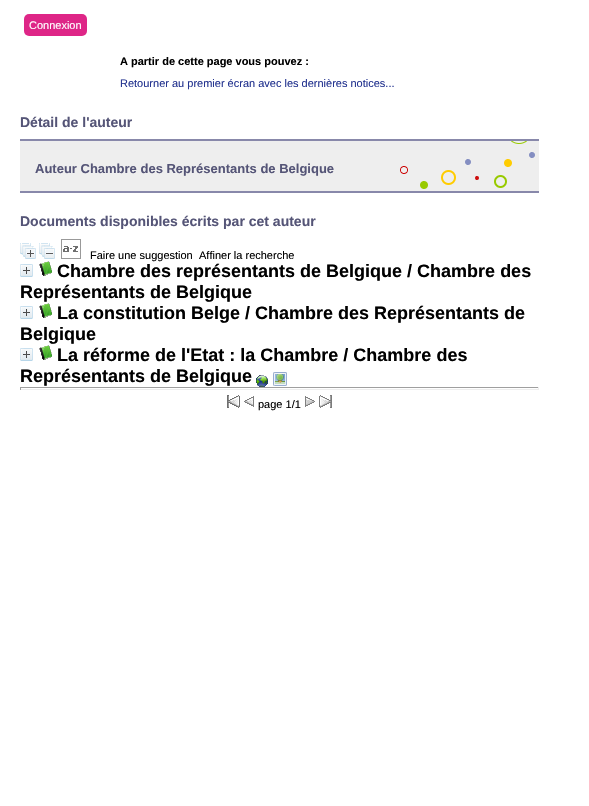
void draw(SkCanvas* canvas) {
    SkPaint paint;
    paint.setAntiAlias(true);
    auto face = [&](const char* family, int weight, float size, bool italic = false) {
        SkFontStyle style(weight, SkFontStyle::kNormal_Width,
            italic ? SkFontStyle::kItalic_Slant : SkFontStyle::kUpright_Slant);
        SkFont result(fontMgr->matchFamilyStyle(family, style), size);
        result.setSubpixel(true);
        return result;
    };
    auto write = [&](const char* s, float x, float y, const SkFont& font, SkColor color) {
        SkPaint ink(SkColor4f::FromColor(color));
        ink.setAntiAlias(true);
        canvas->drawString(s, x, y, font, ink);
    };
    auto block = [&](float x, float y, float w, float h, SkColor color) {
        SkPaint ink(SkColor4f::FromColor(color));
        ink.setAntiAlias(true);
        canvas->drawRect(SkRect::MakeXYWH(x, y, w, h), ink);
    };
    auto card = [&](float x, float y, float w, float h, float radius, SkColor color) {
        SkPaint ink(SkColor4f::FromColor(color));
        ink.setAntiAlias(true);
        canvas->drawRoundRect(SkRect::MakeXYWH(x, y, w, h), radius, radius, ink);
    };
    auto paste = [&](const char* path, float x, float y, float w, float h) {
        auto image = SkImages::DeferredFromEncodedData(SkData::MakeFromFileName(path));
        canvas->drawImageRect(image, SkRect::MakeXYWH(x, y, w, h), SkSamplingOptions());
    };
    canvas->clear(SK_ColorWHITE);
    card(24, 14, 63, 22, 5, SkColorSetRGB(222, 38, 135));
    auto kFont1 = face("Liberation Sans", 400, 11);
    write("Connexion", 29, 29, kFont1, SK_ColorWHITE);
    auto kFont2 = face("Liberation Sans", 700, 11);
    write("A partir de cette page vous pouvez :", 120, 65, kFont2, SK_ColorBLACK);
    write("Retourner au premier écran avec les dernières notices...", 120, 87, kFont1, SkColorSetRGB(35, 51, 143));
    auto kFont3 = face("Liberation Sans", 700, 14);
    write("Détail de l'auteur", 20, 127, kFont3, SkColorSetRGB(85, 85, 119));
    block(20, 141, 519, 50, SkColorSetRGB(238, 238, 238));
    paste("pic1.png", 400, 141, 135, 48);
    block(20, 139, 519, 2, SkColorSetRGB(136, 136, 170));
    block(20, 191, 519, 2, SkColorSetRGB(136, 136, 170));
    auto kFont4 = face("Liberation Sans", 700, 13);
    write("Auteur Chambre des Représentants de Belgique", 35, 173, kFont4, SkColorSetRGB(85, 85, 119));
    write("Documents disponibles écrits par cet auteur", 20, 226, kFont3, SkColorSetRGB(85, 85, 119));
    paste("pic2.png", 20, 243, 16, 16);
    paste("pic3.png", 39, 243, 16, 16);
    paste("pic4.png", 61, 239, 20, 20);
    write("Faire une suggestion", 90, 259, kFont1, SK_ColorBLACK);
    write("Affiner la recherche", 199, 259, kFont1, SK_ColorBLACK);
    paste("pic5.png", 20, 264, 13, 13);
    paste("pic6.png", 39, 261, 13, 15);
    auto kFont5 = face("Liberation Sans", 700, 18);
    write("Chambre des représentants de Belgique / Chambre des", 57, 277, kFont5, SK_ColorBLACK);
    write("Représentants de Belgique", 20, 298, kFont5, SK_ColorBLACK);
    paste("pic5.png", 20, 306, 13, 13);
    paste("pic6.png", 39, 303, 13, 15);
    write("La constitution Belge / Chambre des Représentants de", 57, 319, kFont5, SK_ColorBLACK);
    write("Belgique", 20, 340, kFont5, SK_ColorBLACK);
    paste("pic5.png", 20, 348, 13, 13);
    paste("pic6.png", 39, 345, 13, 15);
    write("La réforme de l'Etat : la Chambre / Chambre des", 57, 361, kFont5, SK_ColorBLACK);
    write("Représentants de Belgique", 20, 382, kFont5, SK_ColorBLACK);
    paste("pic7.png", 256, 375, 12, 12);
    paste("pic8.png", 273, 372, 14, 14);
    block(20, 387, 519, 1, SkColorSetRGB(159, 159, 159));
    block(538, 387, 1, 3, SkColorSetRGB(238, 238, 238));
    block(20, 389, 519, 1, SkColorSetRGB(238, 238, 238));
    block(20, 387, 1, 3, SkColorSetRGB(159, 159, 159));
    paste("pic9.png", 227, 395, 13, 13);
    paste("pic10.png", 244, 396, 10, 11);
    write("page 1/1", 258, 408, kFont1, SK_ColorBLACK);
    paste("pic11.png", 305, 396, 10, 11);
    paste("pic12.png", 319, 395, 13, 13);
}
